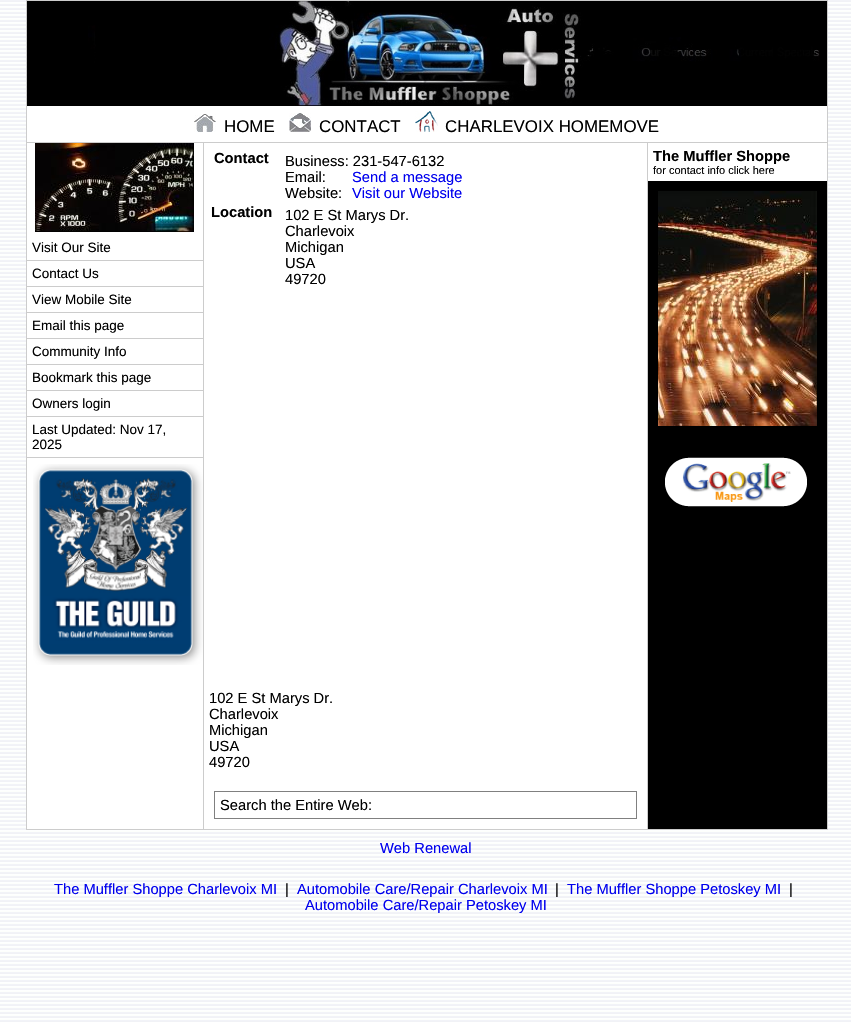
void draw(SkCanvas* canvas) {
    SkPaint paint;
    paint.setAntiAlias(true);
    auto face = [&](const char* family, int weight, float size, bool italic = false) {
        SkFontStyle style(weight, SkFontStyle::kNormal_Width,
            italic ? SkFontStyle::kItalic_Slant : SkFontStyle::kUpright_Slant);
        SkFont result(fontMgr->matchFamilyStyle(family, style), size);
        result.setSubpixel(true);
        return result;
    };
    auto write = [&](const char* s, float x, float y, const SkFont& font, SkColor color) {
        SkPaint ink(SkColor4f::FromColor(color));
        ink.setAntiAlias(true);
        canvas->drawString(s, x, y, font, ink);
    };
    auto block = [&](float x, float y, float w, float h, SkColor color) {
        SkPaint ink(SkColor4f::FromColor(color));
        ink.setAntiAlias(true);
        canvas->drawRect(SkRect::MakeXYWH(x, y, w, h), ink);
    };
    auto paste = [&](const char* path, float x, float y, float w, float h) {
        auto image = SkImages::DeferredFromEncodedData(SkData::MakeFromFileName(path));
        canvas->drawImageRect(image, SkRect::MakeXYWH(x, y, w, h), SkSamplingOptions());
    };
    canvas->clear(SK_ColorWHITE);
    paste("pic1.png", 0, 0, 851, 1022);
    block(27, 107, 800, 722, SK_ColorWHITE);
    paint.setStyle(SkPaint::kStroke_Style);
    paint.setStrokeWidth(1);
    paint.setColor(SkColorSetRGB(204, 204, 204));
    canvas->drawRect(SkRect::MakeXYWH(26.5f, 0.5f, 801, 829), paint);
    block(27, 1, 800, 105, SK_ColorBLACK);
    paste("pic2.png", 88, 1, 732, 105);
    block(27, 142, 800, 1, SkColorSetRGB(204, 204, 204));
    paste("pic3.png", 194, 114, 22, 18);
    auto kFont1 = face("Liberation Sans", 400, 16.9f);
    write("HOME", 224, 132, kFont1, SK_ColorBLACK);
    paste("pic4.png", 289, 113, 22, 19);
    write("CONTACT", 319, 132, kFont1, SK_ColorBLACK);
    paste("pic5.png", 415, 111, 23, 21);
    write("CHARLEVOIX HOMEMOVE", 445, 132, kFont1, SK_ColorBLACK);
    block(203, 143, 1, 686, SkColorSetRGB(204, 204, 204));
    paste("pic6.png", 35, 143, 159, 89);
    block(27, 260, 176, 1, SkColorSetRGB(204, 204, 204));
    auto kFont2 = face("Liberation Sans", 400, 13.5f);
    write("Visit Our Site", 32, 252, kFont2, SK_ColorBLACK);
    block(27, 286, 176, 1, SkColorSetRGB(204, 204, 204));
    write("Contact Us", 32, 278, kFont2, SK_ColorBLACK);
    block(27, 312, 176, 1, SkColorSetRGB(204, 204, 204));
    write("View Mobile Site", 32, 304, kFont2, SK_ColorBLACK);
    block(27, 338, 176, 1, SkColorSetRGB(204, 204, 204));
    write("Email this page", 32, 330, kFont2, SK_ColorBLACK);
    block(27, 364, 176, 1, SkColorSetRGB(204, 204, 204));
    write("Community Info", 32, 356, kFont2, SK_ColorBLACK);
    block(27, 390, 176, 1, SkColorSetRGB(204, 204, 204));
    write("Bookmark this page", 32, 382, kFont2, SK_ColorBLACK);
    block(27, 416, 176, 1, SkColorSetRGB(204, 204, 204));
    write("Owners login", 32, 408, kFont2, SK_ColorBLACK);
    block(27, 457, 176, 1, SkColorSetRGB(204, 204, 204));
    write("Last Updated: Nov 17,", 32, 434, kFont2, SK_ColorBLACK);
    write("2025", 32, 449, kFont2, SK_ColorBLACK);
    paste("pic7.png", 33, 464, 170, 201);
    auto kFont3 = face("Liberation Sans", 700, 14.7f);
    write("Contact", 214, 163, kFont3, SK_ColorBLACK);
    auto kFont4 = face("Liberation Sans", 400, 14.7f);
    write("Business: 231-547-6132", 285, 166, kFont4, SK_ColorBLACK);
    write("Email:", 285, 182, kFont4, SK_ColorBLACK);
    write("Website:", 285, 198, kFont4, SK_ColorBLACK);
    write("Send a message", 352, 182, kFont4, SkColorSetRGB(0, 0, 238));
    write("Visit our Website", 352, 198, kFont4, SkColorSetRGB(0, 0, 238));
    write("Location", 211, 217, kFont3, SK_ColorBLACK);
    write("102 E St Marys Dr.", 285, 220, kFont4, SK_ColorBLACK);
    write("Charlevoix", 285, 236, kFont4, SK_ColorBLACK);
    write("Michigan", 285, 252, kFont4, SK_ColorBLACK);
    write("USA", 285, 268, kFont4, SK_ColorBLACK);
    write("49720", 285, 284, kFont4, SK_ColorBLACK);
    write("102 E St Marys Dr.", 209, 703, kFont4, SK_ColorBLACK);
    write("Charlevoix", 209, 719, kFont4, SK_ColorBLACK);
    write("Michigan", 209, 735, kFont4, SK_ColorBLACK);
    write("USA", 209, 751, kFont4, SK_ColorBLACK);
    write("49720", 209, 767, kFont4, SK_ColorBLACK);
    paint.setColor(SkColorSetRGB(128, 128, 128));
    canvas->drawRect(SkRect::MakeXYWH(214.5f, 791.5f, 422, 27), paint);
    write("Search the Entire Web:", 220, 810, kFont4, SK_ColorBLACK);
    block(648, 181, 179, 648, SK_ColorBLACK);
    block(647, 143, 1, 686, SkColorSetRGB(204, 204, 204));
    write("The Muffler Shoppe", 653, 161, kFont3, SK_ColorBLACK);
    auto kFont5 = face("Liberation Sans", 400, 11);
    write("for contact info click here", 653, 174, kFont5, SK_ColorBLACK);
    paste("pic8.png", 658, 191, 159, 235);
    paste("pic9.png", 665, 457, 142, 50);
    write("Web Renewal", 380, 853, kFont4, SkColorSetRGB(0, 0, 238));
    write("The Muffler Shoppe Charlevoix MI", 54, 894, kFont4, SkColorSetRGB(0, 0, 238));
    write("|", 285, 894, kFont4, SK_ColorBLACK);
    write("Automobile Care/Repair Charlevoix MI", 297, 894, kFont4, SkColorSetRGB(0, 0, 238));
    write("|", 555, 894, kFont4, SK_ColorBLACK);
    write("The Muffler Shoppe Petoskey MI", 567, 894, kFont4, SkColorSetRGB(0, 0, 238));
    write("|", 789, 894, kFont4, SK_ColorBLACK);
    write("Automobile Care/Repair Petoskey MI", 305, 910, kFont4, SkColorSetRGB(0, 0, 238));
}
